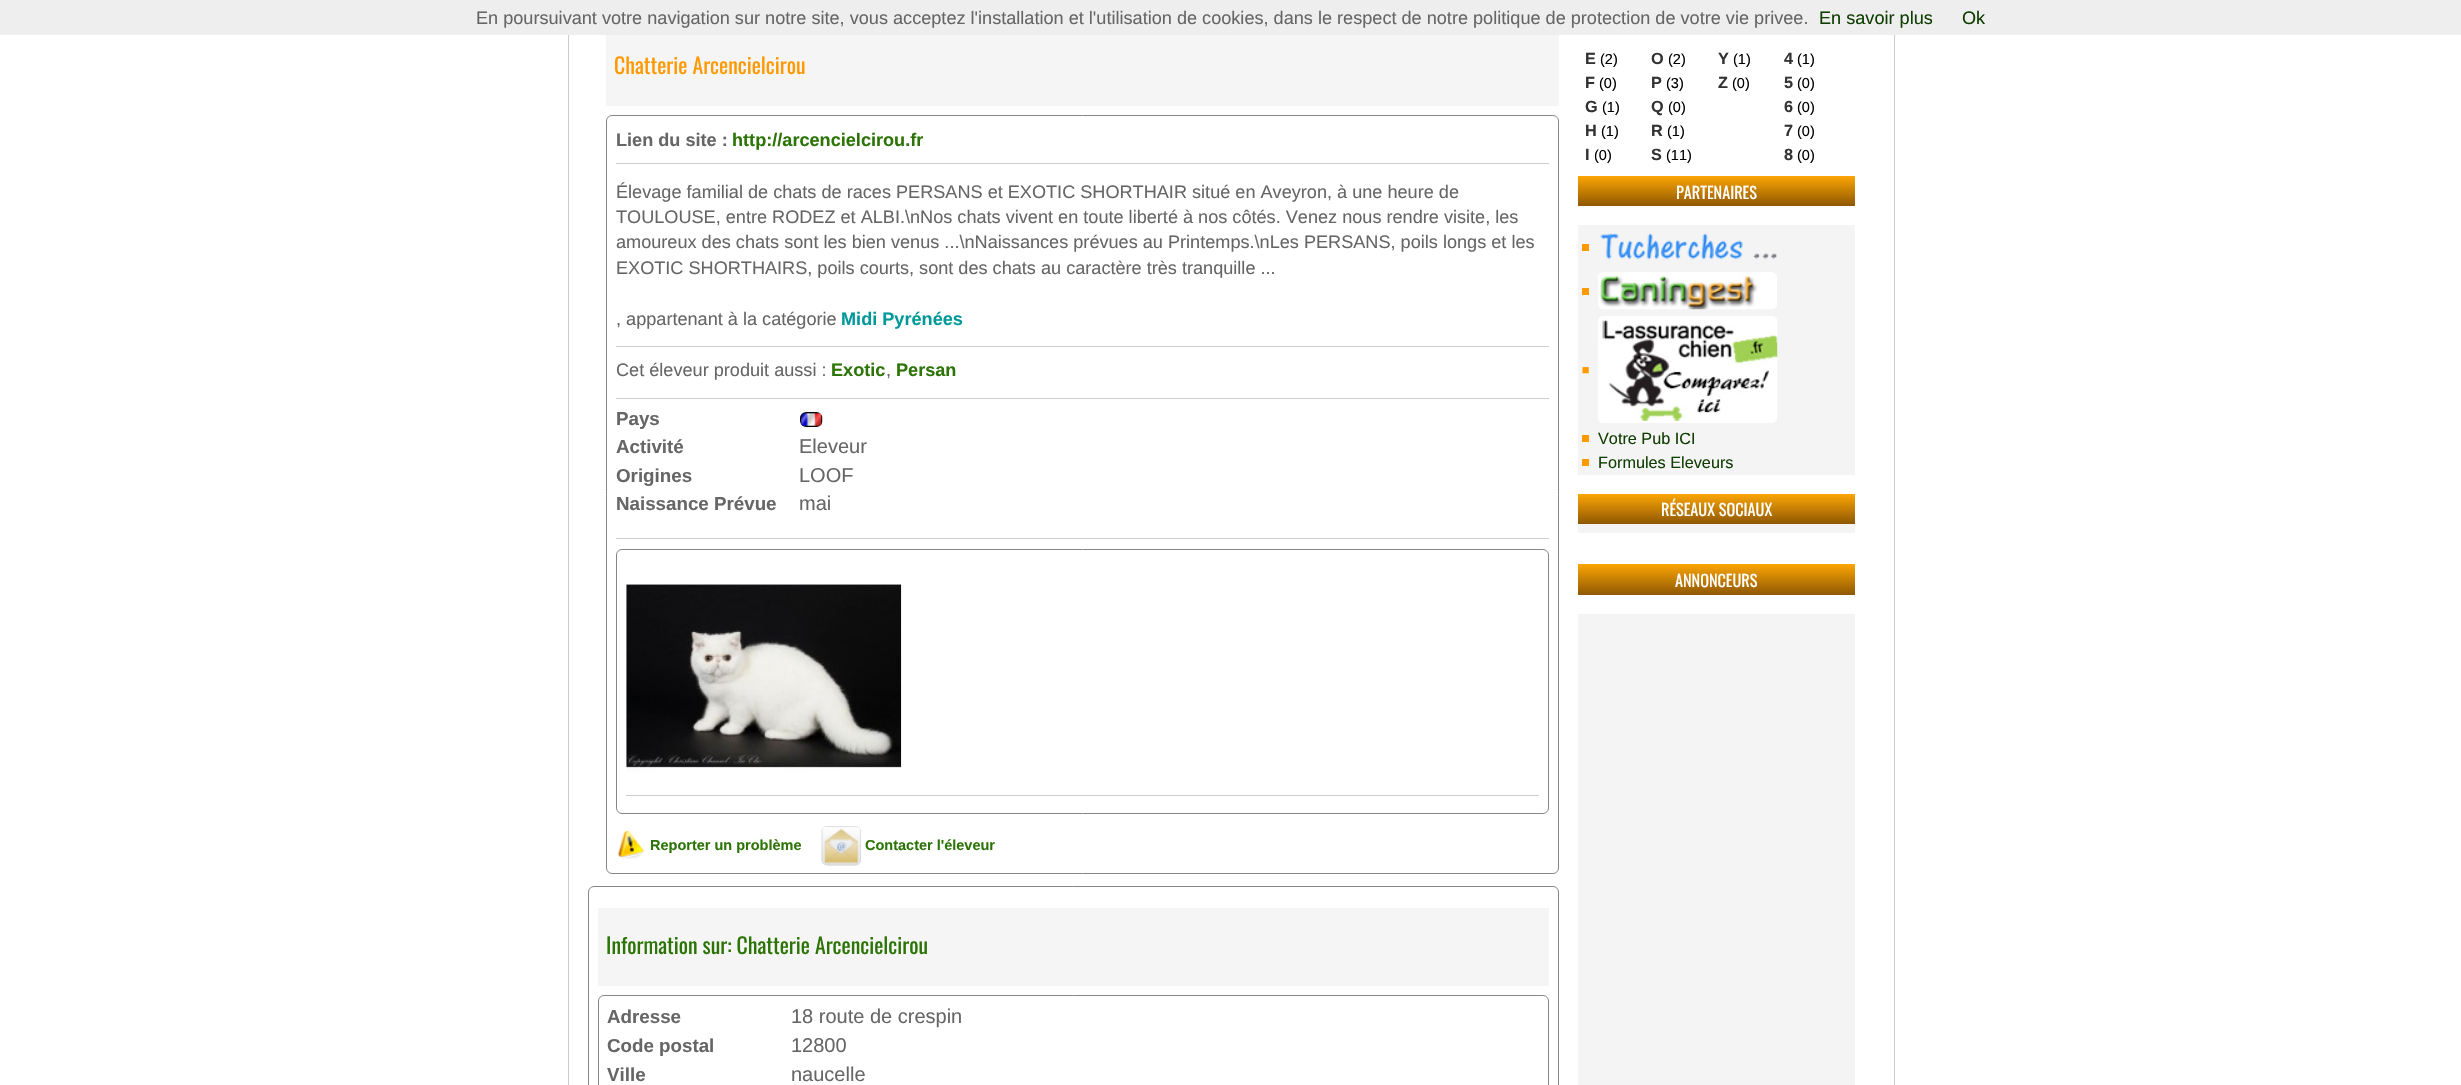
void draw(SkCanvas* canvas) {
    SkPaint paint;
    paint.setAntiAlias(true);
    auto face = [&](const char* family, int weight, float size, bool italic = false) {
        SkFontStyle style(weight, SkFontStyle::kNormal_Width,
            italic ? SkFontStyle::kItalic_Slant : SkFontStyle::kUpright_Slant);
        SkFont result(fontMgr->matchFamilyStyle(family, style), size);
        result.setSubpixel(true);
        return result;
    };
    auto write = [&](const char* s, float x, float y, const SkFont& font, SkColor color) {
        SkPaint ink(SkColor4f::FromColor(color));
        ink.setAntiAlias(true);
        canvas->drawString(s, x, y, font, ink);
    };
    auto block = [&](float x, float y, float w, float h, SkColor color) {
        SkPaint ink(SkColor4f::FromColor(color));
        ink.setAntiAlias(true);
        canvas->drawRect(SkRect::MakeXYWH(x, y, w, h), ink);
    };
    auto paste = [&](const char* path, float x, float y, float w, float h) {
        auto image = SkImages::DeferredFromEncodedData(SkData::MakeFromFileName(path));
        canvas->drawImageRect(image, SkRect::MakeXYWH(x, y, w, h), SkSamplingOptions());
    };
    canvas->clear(SK_ColorWHITE);
    block(0, 0, 2461, 35, SkColorSetRGB(238, 238, 238));
    auto kFont1 = face("Liberation Sans", 400, 18.12f);
    write("En poursuivant votre navigation sur notre site, vous acceptez l'installation et l'utilisation de cookies, dans le respect de notre politique de protection de votre vie privee.", 476, 24, kFont1, SkColorSetRGB(102, 102, 102));
    write("En savoir plus", 1819, 24, kFont1, SkColorSetRGB(16, 62, 2));
    write("Ok", 1962, 24, kFont1, SkColorSetRGB(16, 62, 2));
    block(1894, 35, 1, 1050, SkColorSetRGB(204, 204, 204));
    block(568, 35, 1, 1050, SkColorSetRGB(204, 204, 204));
    block(606, 35, 953, 71, SkColorSetRGB(245, 245, 245));
    auto kFont2 = face("Oswald", 400, 21.75f);
    write("Chatterie Arcencielcirou", 614, 74, kFont2, SkColorSetRGB(255, 153, 0));
    paint.setStyle(SkPaint::kStroke_Style);
    paint.setStrokeWidth(1);
    paint.setColor(SkColorSetRGB(134, 134, 134));
    canvas->drawRoundRect(SkRect::MakeXYWH(606.5f, 115.5f, 952, 758), 5.5f, 5.5f, paint);
    auto kFont3 = face("Liberation Sans", 700, 18.12f);
    write("Lien du site :", 616, 146, kFont3, SkColorSetRGB(102, 102, 102));
    write("http://arcencielcirou.fr", 732, 146, kFont3, SkColorSetRGB(44, 116, 6));
    block(616, 163, 933, 1, SkColorSetRGB(204, 204, 204));
    write("Élevage familial de chats de races PERSANS et EXOTIC SHORTHAIR situé en Aveyron, à une heure de", 616, 198, kFont1, SkColorSetRGB(102, 102, 102));
    write("TOULOUSE, entre RODEZ et ALBI.\\nNos chats vivent en toute liberté à nos côtés. Venez nous rendre visite, les", 616, 223, kFont1, SkColorSetRGB(102, 102, 102));
    write("amoureux des chats sont les bien venus ...\\nNaissances prévues au Printemps.\\nLes PERSANS, poils longs et les", 616, 248, kFont1, SkColorSetRGB(102, 102, 102));
    write("EXOTIC SHORTHAIRS, poils courts, sont des chats au caractère très tranquille ...", 616, 274, kFont1, SkColorSetRGB(102, 102, 102));
    write(", appartenant à la catégorie", 616, 325, kFont1, SkColorSetRGB(102, 102, 102));
    write("Midi Pyrénées", 841, 325, kFont3, SkColorSetRGB(0, 153, 153));
    block(616, 346, 933, 1, SkColorSetRGB(204, 204, 204));
    write("Cet éleveur produit aussi :", 616, 376, kFont1, SkColorSetRGB(102, 102, 102));
    write("Exotic", 831, 376, kFont3, SkColorSetRGB(44, 116, 6));
    write(",", 886, 376, kFont1, SkColorSetRGB(102, 102, 102));
    write("Persan", 896, 376, kFont3, SkColorSetRGB(44, 116, 6));
    block(616, 398, 933, 1, SkColorSetRGB(204, 204, 204));
    auto kFont4 = face("Liberation Sans", 700, 18.75f);
    write("Pays", 616, 425, kFont4, SkColorSetRGB(102, 102, 102));
    paste("pic1.png", 800, 412, 23, 15);
    write("Activité", 616, 453, kFont4, SkColorSetRGB(102, 102, 102));
    auto kFont5 = face("Liberation Sans", 400, 20);
    write("Eleveur", 799, 453, kFont5, SkColorSetRGB(102, 102, 102));
    write("Origines", 616, 482, kFont4, SkColorSetRGB(102, 102, 102));
    write("LOOF", 799, 482, kFont5, SkColorSetRGB(102, 102, 102));
    write("Naissance Prévue", 616, 510, kFont4, SkColorSetRGB(102, 102, 102));
    write("mai", 799, 510, kFont5, SkColorSetRGB(102, 102, 102));
    block(616, 538, 933, 1, SkColorSetRGB(204, 204, 204));
    canvas->drawRoundRect(SkRect::MakeXYWH(616.5f, 549.5f, 932, 264), 5.5f, 5.5f, paint);
    paste("pic2.png", 626, 584, 276, 189);
    block(626, 795, 913, 1, SkColorSetRGB(204, 204, 204));
    paste("pic3.png", 617, 830, 27, 29);
    auto kFont6 = face("Liberation Sans", 700, 14.5f);
    write("Reporter un problème", 650, 850, kFont6, SkColorSetRGB(44, 116, 6));
    paste("pic4.png", 821, 826, 40, 40);
    write("Contacter l'éleveur", 865, 850, kFont6, SkColorSetRGB(44, 116, 6));
    auto kFont7 = face("Liberation Sans", 700, 16.25f);
    write("E", 1585, 64, kFont7, SkColorSetRGB(51, 51, 51));
    auto kFont8 = face("Liberation Sans", 400, 14.5f);
    write("(2)", 1600, 64, kFont8, SK_ColorBLACK);
    write("F", 1585, 88, kFont7, SkColorSetRGB(51, 51, 51));
    write("(0)", 1599, 88, kFont8, SK_ColorBLACK);
    write("G", 1585, 112, kFont7, SkColorSetRGB(51, 51, 51));
    write("(1)", 1602, 112, kFont8, SK_ColorBLACK);
    write("H", 1585, 136, kFont7, SkColorSetRGB(51, 51, 51));
    write("(1)", 1601, 136, kFont8, SK_ColorBLACK);
    write("I", 1585, 160, kFont7, SkColorSetRGB(51, 51, 51));
    write("(0)", 1594, 160, kFont8, SK_ColorBLACK);
    write("O", 1651, 64, kFont7, SkColorSetRGB(51, 51, 51));
    write("(2)", 1668, 64, kFont8, SK_ColorBLACK);
    write("P", 1651, 88, kFont7, SkColorSetRGB(51, 51, 51));
    write("(3)", 1666, 88, kFont8, SK_ColorBLACK);
    write("Q", 1651, 112, kFont7, SkColorSetRGB(51, 51, 51));
    write("(0)", 1668, 112, kFont8, SK_ColorBLACK);
    write("R", 1651, 136, kFont7, SkColorSetRGB(51, 51, 51));
    write("(1)", 1667, 136, kFont8, SK_ColorBLACK);
    write("S", 1651, 160, kFont7, SkColorSetRGB(51, 51, 51));
    write("(11)", 1666, 160, kFont8, SK_ColorBLACK);
    write("Y", 1718, 64, kFont7, SkColorSetRGB(51, 51, 51));
    write("(1)", 1733, 64, kFont8, SK_ColorBLACK);
    write("Z", 1718, 88, kFont7, SkColorSetRGB(51, 51, 51));
    write("(0)", 1732, 88, kFont8, SK_ColorBLACK);
    write("4", 1784, 64, kFont7, SkColorSetRGB(51, 51, 51));
    write("(1)", 1797, 64, kFont8, SK_ColorBLACK);
    write("5", 1784, 88, kFont7, SkColorSetRGB(51, 51, 51));
    write("(0)", 1797, 88, kFont8, SK_ColorBLACK);
    write("6", 1784, 112, kFont7, SkColorSetRGB(51, 51, 51));
    write("(0)", 1797, 112, kFont8, SK_ColorBLACK);
    write("7", 1784, 136, kFont7, SkColorSetRGB(51, 51, 51));
    write("(0)", 1797, 136, kFont8, SK_ColorBLACK);
    write("8", 1784, 160, kFont7, SkColorSetRGB(51, 51, 51));
    write("(0)", 1797, 160, kFont8, SK_ColorBLACK);
    paint.setStyle(SkPaint::kFill_Style);
    {
        const SkColor colors[] = {SkColorSetRGB(252, 166, 4), SkColorSetRGB(142, 87, 3)};
        const float stops[] = {0, 1};
        const SkPoint ends[] = {{1716, 176}, {1716, 206}};
        paint.setShader(SkGradientShader::MakeLinear(ends, colors, stops, 2, SkTileMode::kClamp));
        paint.setAlpha(255);
    }
    canvas->drawRect(SkRect::MakeXYWH(1578, 176, 277, 30), paint);
    auto kFont9 = face("Oswald", 400, 16.25f);
    write("PARTENAIRES", 1676, 199, kFont9, SK_ColorWHITE);
    block(1578, 225, 277, 250, SkColorSetRGB(244, 244, 244));
    block(1582, 244, 7, 7, SkColorSetRGB(255, 153, 0));
    paste("pic5.png", 1600, 233, 177, 27);
    block(1582, 288, 7, 7, SkColorSetRGB(255, 153, 0));
    paste("pic6.png", 1598, 272, 179, 38);
    paste("pic7.png", 1582, 366, 7, 8);
    paste("pic8.png", 1598, 316, 180, 107);
    block(1582, 435, 7, 7, SkColorSetRGB(255, 153, 0));
    auto kFont10 = face("Liberation Sans", 400, 16.25f);
    write("Votre Pub ICI", 1598, 444, kFont10, SkColorSetRGB(16, 62, 2));
    block(1582, 459, 7, 7, SkColorSetRGB(255, 153, 0));
    write("Formules Eleveurs", 1598, 468, kFont10, SkColorSetRGB(16, 62, 2));
    block(1578, 524, 277, 9, SkColorSetRGB(244, 244, 244));
    {
        const SkColor colors[] = {SkColorSetRGB(252, 166, 4), SkColorSetRGB(142, 87, 3)};
        const float stops[] = {0, 1};
        const SkPoint ends[] = {{1716, 494}, {1716, 524}};
        paint.setShader(SkGradientShader::MakeLinear(ends, colors, stops, 2, SkTileMode::kClamp));
        paint.setAlpha(255);
    }
    canvas->drawRect(SkRect::MakeXYWH(1578, 494, 277, 30), paint);
    write("RÉSEAUX SOCIAUX", 1661, 516, kFont9, SK_ColorWHITE);
    {
        const SkColor colors[] = {SkColorSetRGB(252, 166, 4), SkColorSetRGB(142, 87, 3)};
        const float stops[] = {0, 1};
        const SkPoint ends[] = {{1716, 564}, {1716, 595}};
        paint.setShader(SkGradientShader::MakeLinear(ends, colors, stops, 2, SkTileMode::kClamp));
        paint.setAlpha(255);
    }
    canvas->drawRect(SkRect::MakeXYWH(1578, 564, 277, 31), paint);
    write("ANNONCEURS", 1675, 587, kFont9, SK_ColorWHITE);
    block(1578, 614, 277, 471, SkColorSetRGB(244, 244, 244));
    paint.setStyle(SkPaint::kStroke_Style);
    paint.setShader(nullptr);
    paint.setColor(SkColorSetRGB(134, 134, 134));
    canvas->drawRoundRect(SkRect::MakeXYWH(588.5f, 886.5f, 970, 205), 5.5f, 5.5f, paint);
    block(598, 908, 951, 78, SkColorSetRGB(245, 245, 245));
    write("Information sur: Chatterie Arcencielcirou", 606, 954, kFont2, SkColorSetRGB(44, 116, 6));
    canvas->drawRoundRect(SkRect::MakeXYWH(598.5f, 995.5f, 950, 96), 5.5f, 5.5f, paint);
    write("Adresse", 607, 1023, kFont4, SkColorSetRGB(102, 102, 102));
    write("18 route de crespin", 791, 1023, kFont5, SkColorSetRGB(102, 102, 102));
    write("Code postal", 607, 1052, kFont4, SkColorSetRGB(102, 102, 102));
    write("12800", 791, 1052, kFont5, SkColorSetRGB(102, 102, 102));
    write("Ville", 607, 1081, kFont4, SkColorSetRGB(102, 102, 102));
    write("naucelle", 791, 1081, kFont5, SkColorSetRGB(102, 102, 102));
}
